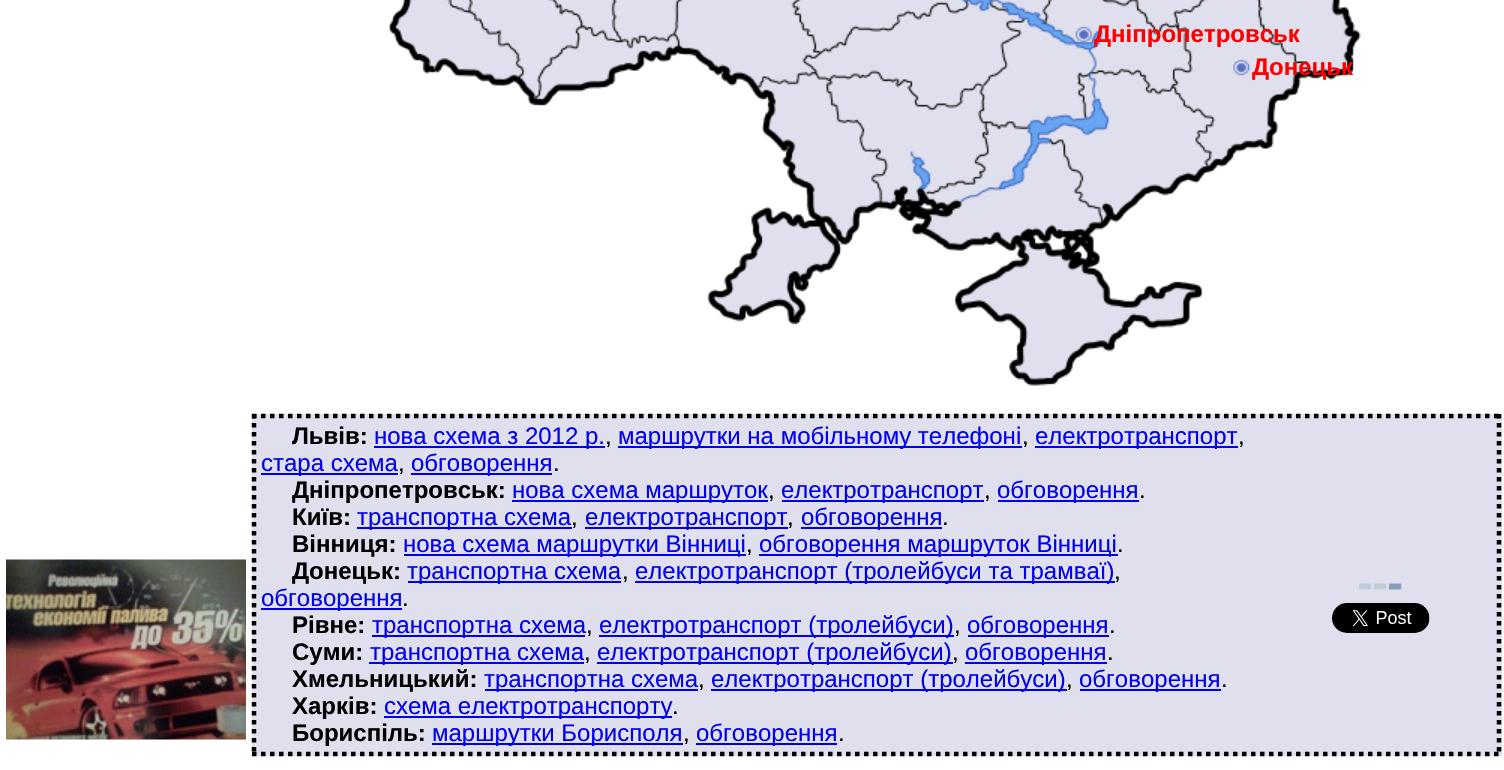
void draw(SkCanvas* canvas) {
    SkPaint paint;
    paint.setAntiAlias(true);
    auto face = [&](const char* family, int weight, float size, bool italic = false) {
        SkFontStyle style(weight, SkFontStyle::kNormal_Width,
            italic ? SkFontStyle::kItalic_Slant : SkFontStyle::kUpright_Slant);
        SkFont result(fontMgr->matchFamilyStyle(family, style), size);
        result.setSubpixel(true);
        return result;
    };
    auto write = [&](const char* s, float x, float y, const SkFont& font, SkColor color) {
        SkPaint ink(SkColor4f::FromColor(color));
        ink.setAntiAlias(true);
        canvas->drawString(s, x, y, font, ink);
    };
    auto block = [&](float x, float y, float w, float h, SkColor color) {
        SkPaint ink(SkColor4f::FromColor(color));
        ink.setAntiAlias(true);
        canvas->drawRect(SkRect::MakeXYWH(x, y, w, h), ink);
    };
    auto paste = [&](const char* path, float x, float y, float w, float h) {
        auto image = SkImages::DeferredFromEncodedData(SkData::MakeFromFileName(path));
        canvas->drawImageRect(image, SkRect::MakeXYWH(x, y, w, h), SkSamplingOptions());
    };
    canvas->clear(SK_ColorWHITE);
    paste("pic1.png", 388, 0, 973, 386);
    paste("pic2.png", 1075, 26, 18, 17);
    auto kFont1 = face("Liberation Sans", 700, 24);
    write("Дніпропетровськ", 1094, 42, kFont1, SkColorSetRGB(255, 0, 0));
    paste("pic3.png", 1233, 59, 17, 17);
    write("Донецьк", 1252, 75, kFont1, SkColorSetRGB(255, 0, 0));
    paste("pic4.png", 6, 559, 240, 181);
    block(252, 414, 1250, 342, SkColorSetRGB(223, 223, 237));
    paint.setStyle(SkPaint::kStroke_Style);
    paint.setStrokeWidth(4.5f);
    paint.setColor(SK_ColorBLACK);
    paint.setPathEffect(SkDashPathEffect::Make({{4.5f, 4.5f}}, 0));
    canvas->drawPath(SkPathBuilder().moveTo(252, 416).lineTo(1501.5f, 416).detach(), paint);
    paint.setPathEffect(nullptr);
    paint.setPathEffect(SkDashPathEffect::Make({{4.5f, 4.5f}}, 0));
    canvas->drawPath(SkPathBuilder().moveTo(1499, 414).lineTo(1499, 756).detach(), paint);
    paint.setPathEffect(nullptr);
    paint.setPathEffect(SkDashPathEffect::Make({{4.5f, 4.5f}}, 0));
    canvas->drawPath(SkPathBuilder().moveTo(252, 754).lineTo(1501.5f, 754).detach(), paint);
    paint.setPathEffect(nullptr);
    paint.setPathEffect(SkDashPathEffect::Make({{4.5f, 4.5f}}, 0));
    canvas->drawPath(SkPathBuilder().moveTo(254, 414).lineTo(254, 756).detach(), paint);
    paint.setPathEffect(nullptr);
    write("Львів:", 292, 444, kFont1, SK_ColorBLACK);
    block(374, 446, 231, 2, SkColorSetRGB(0, 0, 238));
    auto kFont2 = face("Liberation Sans", 400, 24);
    write("нова схема з 2012 р.", 374, 444, kFont2, SkColorSetRGB(0, 0, 238));
    write(",", 605, 444, kFont2, SK_ColorBLACK);
    block(618, 446, 404, 2, SkColorSetRGB(0, 0, 238));
    write("маршрутки на мобільному телефоні", 618, 444, kFont2, SkColorSetRGB(0, 0, 238));
    write(",", 1022, 444, kFont2, SK_ColorBLACK);
    block(1035, 446, 203, 2, SkColorSetRGB(0, 0, 238));
    write("електротранспорт", 1035, 444, kFont2, SkColorSetRGB(0, 0, 238));
    write(",", 1238, 444, kFont2, SK_ColorBLACK);
    block(261, 473, 137, 2, SkColorSetRGB(0, 0, 238));
    write("стара схема", 261, 471, kFont2, SkColorSetRGB(0, 0, 238));
    write(",", 398, 471, kFont2, SK_ColorBLACK);
    block(411, 473, 141, 2, SkColorSetRGB(0, 0, 238));
    write("обговорення", 411, 471, kFont2, SkColorSetRGB(0, 0, 238));
    write(".", 553, 471, kFont2, SK_ColorBLACK);
    write("Дніпропетровськ:", 292, 498, kFont1, SK_ColorBLACK);
    block(512, 500, 256, 2, SkColorSetRGB(0, 0, 238));
    write("нова схема маршруток", 512, 498, kFont2, SkColorSetRGB(0, 0, 238));
    write(",", 768, 498, kFont2, SK_ColorBLACK);
    block(782, 500, 202, 2, SkColorSetRGB(0, 0, 238));
    write("електротранспорт", 781, 498, kFont2, SkColorSetRGB(0, 0, 238));
    write(",", 984, 498, kFont2, SK_ColorBLACK);
    block(998, 500, 141, 2, SkColorSetRGB(0, 0, 238));
    write("обговорення", 997, 498, kFont2, SkColorSetRGB(0, 0, 238));
    write(".", 1139, 498, kFont2, SK_ColorBLACK);
    write("Київ:", 292, 525, kFont1, SK_ColorBLACK);
    block(357, 527, 215, 2, SkColorSetRGB(0, 0, 238));
    write("транспортна схема", 357, 525, kFont2, SkColorSetRGB(0, 0, 238));
    write(",", 571, 525, kFont2, SK_ColorBLACK);
    block(585, 527, 203, 2, SkColorSetRGB(0, 0, 238));
    write("електротранспорт", 585, 525, kFont2, SkColorSetRGB(0, 0, 238));
    write(",", 787, 525, kFont2, SK_ColorBLACK);
    block(801, 527, 141, 2, SkColorSetRGB(0, 0, 238));
    write("обговорення", 801, 525, kFont2, SkColorSetRGB(0, 0, 238));
    write(".", 942, 525, kFont2, SK_ColorBLACK);
    write("Вінниця:", 292, 552, kFont1, SK_ColorBLACK);
    block(404, 554, 342, 2, SkColorSetRGB(0, 0, 238));
    write("нова схема маршрутки Вінниці", 403, 552, kFont2, SkColorSetRGB(0, 0, 238));
    write(",", 746, 552, kFont2, SK_ColorBLACK);
    block(759, 554, 359, 2, SkColorSetRGB(0, 0, 238));
    write("обговорення маршруток Вінниці", 759, 552, kFont2, SkColorSetRGB(0, 0, 238));
    write(".", 1117, 552, kFont2, SK_ColorBLACK);
    write("Донецьк:", 292, 579, kFont1, SK_ColorBLACK);
    block(408, 581, 213, 2, SkColorSetRGB(0, 0, 238));
    write("транспортна схема", 407, 579, kFont2, SkColorSetRGB(0, 0, 238));
    write(",", 622, 579, kFont2, SK_ColorBLACK);
    block(635, 581, 480, 2, SkColorSetRGB(0, 0, 238));
    write("електротранспорт (тролейбуси та трамваї)", 635, 579, kFont2, SkColorSetRGB(0, 0, 238));
    write(",", 1114, 579, kFont2, SK_ColorBLACK);
    block(261, 608, 141, 2, SkColorSetRGB(0, 0, 238));
    write("обговорення", 261, 606, kFont2, SkColorSetRGB(0, 0, 238));
    write(".", 402, 606, kFont2, SK_ColorBLACK);
    write("Рівне:", 292, 633, kFont1, SK_ColorBLACK);
    block(372, 635, 213, 2, SkColorSetRGB(0, 0, 238));
    write("транспортна схема", 372, 633, kFont2, SkColorSetRGB(0, 0, 238));
    write(",", 586, 633, kFont2, SK_ColorBLACK);
    block(599, 635, 355, 2, SkColorSetRGB(0, 0, 238));
    write("електротранспорт (тролейбуси)", 599, 633, kFont2, SkColorSetRGB(0, 0, 238));
    write(",", 954, 633, kFont2, SK_ColorBLACK);
    block(968, 635, 141, 2, SkColorSetRGB(0, 0, 238));
    write("обговорення", 967, 633, kFont2, SkColorSetRGB(0, 0, 238));
    write(".", 1109, 633, kFont2, SK_ColorBLACK);
    write("Суми:", 292, 660, kFont1, SK_ColorBLACK);
    block(369, 662, 215, 2, SkColorSetRGB(0, 0, 238));
    write("транспортна схема", 370, 660, kFont2, SkColorSetRGB(0, 0, 238));
    write(",", 584, 660, kFont2, SK_ColorBLACK);
    block(597, 662, 356, 2, SkColorSetRGB(0, 0, 238));
    write("електротранспорт (тролейбуси)", 597, 660, kFont2, SkColorSetRGB(0, 0, 238));
    write(",", 952, 660, kFont2, SK_ColorBLACK);
    block(965, 662, 142, 2, SkColorSetRGB(0, 0, 238));
    write("обговорення", 965, 660, kFont2, SkColorSetRGB(0, 0, 238));
    write(".", 1107, 660, kFont2, SK_ColorBLACK);
    write("Хмельницький:", 292, 687, kFont1, SK_ColorBLACK);
    block(485, 689, 213, 2, SkColorSetRGB(0, 0, 238));
    write("транспортна схема", 484, 687, kFont2, SkColorSetRGB(0, 0, 238));
    write(",", 698, 687, kFont2, SK_ColorBLACK);
    block(711, 689, 356, 2, SkColorSetRGB(0, 0, 238));
    write("електротранспорт (тролейбуси)", 711, 687, kFont2, SkColorSetRGB(0, 0, 238));
    write(",", 1066, 687, kFont2, SK_ColorBLACK);
    block(1080, 689, 141, 2, SkColorSetRGB(0, 0, 238));
    write("обговорення", 1079, 687, kFont2, SkColorSetRGB(0, 0, 238));
    write(".", 1221, 687, kFont2, SK_ColorBLACK);
    write("Харків:", 292, 714, kFont1, SK_ColorBLACK);
    block(384, 716, 288, 2, SkColorSetRGB(0, 0, 238));
    write("cхема електротранспорту", 384, 714, kFont2, SkColorSetRGB(0, 0, 238));
    write(".", 672, 714, kFont2, SK_ColorBLACK);
    write("Бориспіль:", 292, 741, kFont1, SK_ColorBLACK);
    block(432, 743, 251, 2, SkColorSetRGB(0, 0, 238));
    write("маршрутки Борисполя", 432, 741, kFont2, SkColorSetRGB(0, 0, 238));
    write(",", 683, 741, kFont2, SK_ColorBLACK);
    block(696, 743, 141, 2, SkColorSetRGB(0, 0, 238));
    write("обговорення", 696, 741, kFont2, SkColorSetRGB(0, 0, 238));
    write(".", 838, 741, kFont2, SK_ColorBLACK);
    paste("pic5.png", 1359, 583, 43, 7);
    paste("pic6.png", 1332, 603, 98, 30);
}
